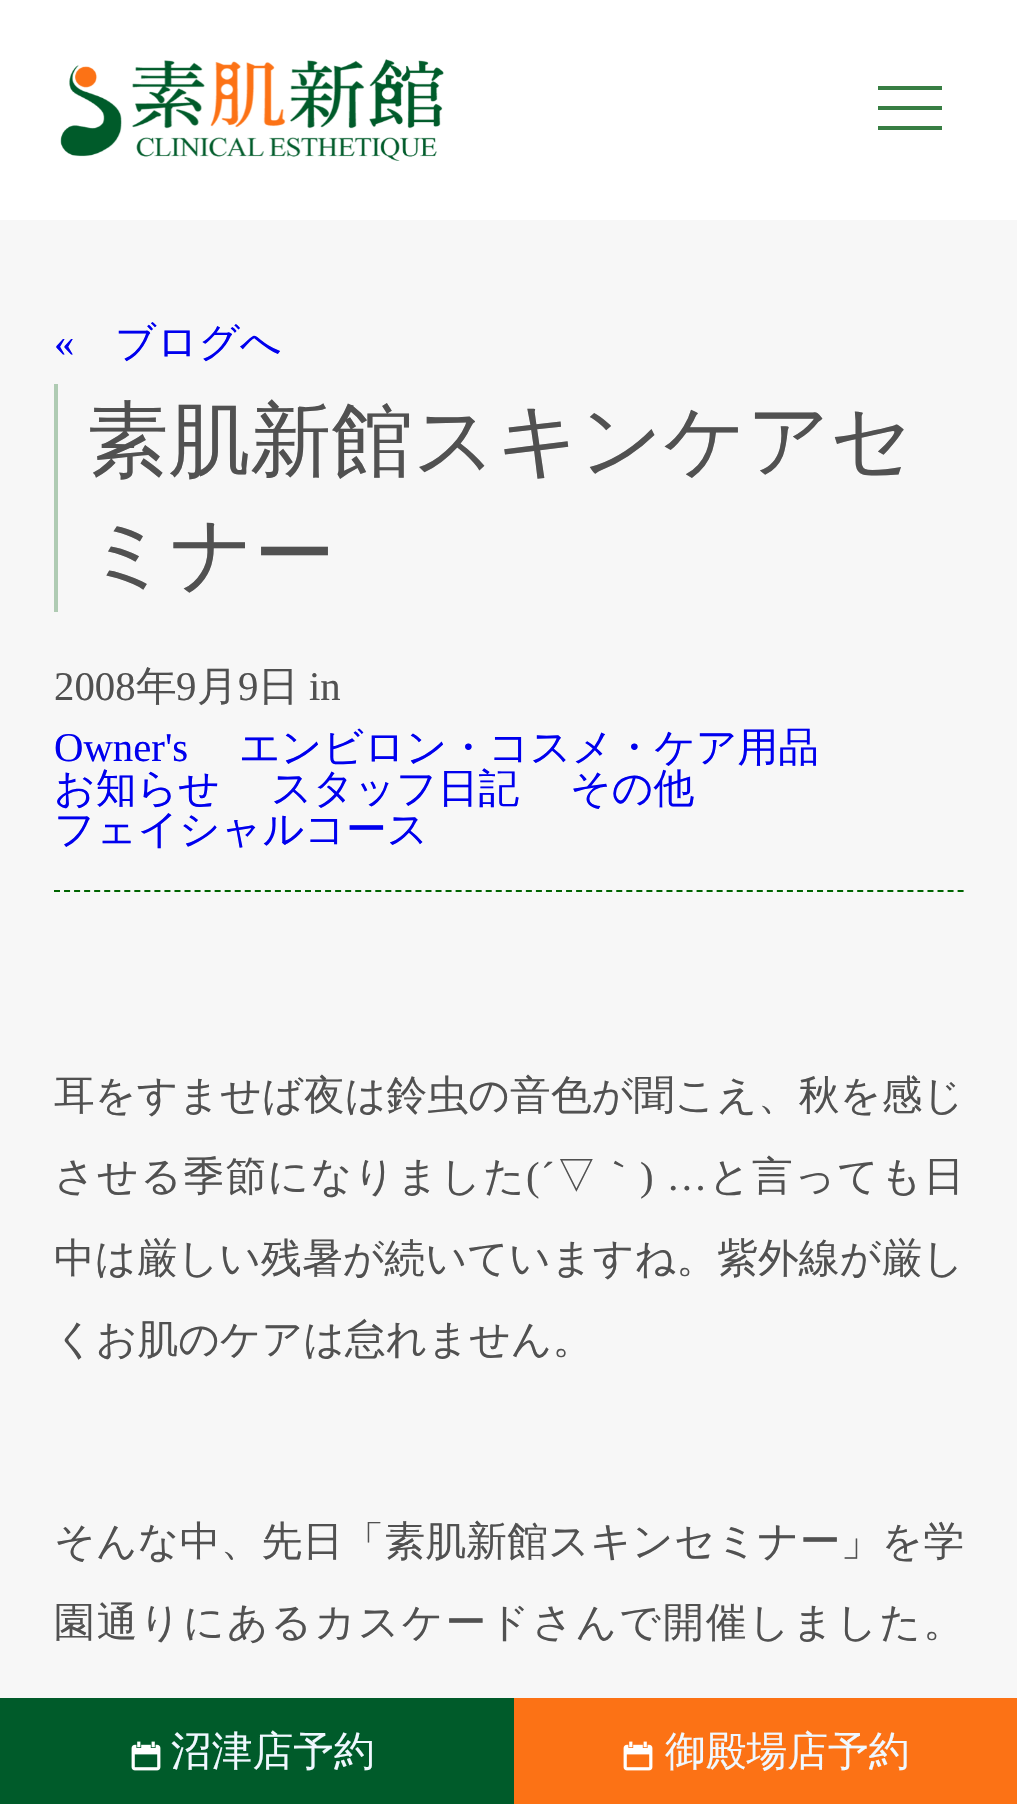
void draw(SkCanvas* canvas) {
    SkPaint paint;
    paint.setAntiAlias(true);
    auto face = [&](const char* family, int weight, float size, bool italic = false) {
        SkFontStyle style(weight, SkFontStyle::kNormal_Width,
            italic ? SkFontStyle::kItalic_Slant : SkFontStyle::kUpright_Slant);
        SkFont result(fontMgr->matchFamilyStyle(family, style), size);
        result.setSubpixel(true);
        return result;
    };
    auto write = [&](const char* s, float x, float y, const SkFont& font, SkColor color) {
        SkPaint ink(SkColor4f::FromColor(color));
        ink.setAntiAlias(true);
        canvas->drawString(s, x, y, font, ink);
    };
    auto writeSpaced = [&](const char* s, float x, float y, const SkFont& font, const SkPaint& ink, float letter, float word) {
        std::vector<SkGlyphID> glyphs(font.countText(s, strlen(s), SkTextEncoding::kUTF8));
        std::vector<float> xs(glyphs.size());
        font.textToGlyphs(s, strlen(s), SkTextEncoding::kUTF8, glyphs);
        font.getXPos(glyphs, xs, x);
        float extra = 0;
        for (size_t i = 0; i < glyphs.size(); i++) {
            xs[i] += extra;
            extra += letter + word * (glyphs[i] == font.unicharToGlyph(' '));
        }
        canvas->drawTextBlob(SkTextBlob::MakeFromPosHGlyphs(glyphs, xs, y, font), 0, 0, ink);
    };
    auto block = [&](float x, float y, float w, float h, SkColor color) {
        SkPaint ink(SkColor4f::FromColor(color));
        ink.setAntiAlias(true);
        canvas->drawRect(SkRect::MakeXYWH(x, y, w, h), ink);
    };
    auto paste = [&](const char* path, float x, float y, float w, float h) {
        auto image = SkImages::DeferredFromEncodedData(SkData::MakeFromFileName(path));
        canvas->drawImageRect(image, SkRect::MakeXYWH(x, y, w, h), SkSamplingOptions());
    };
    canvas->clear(SK_ColorWHITE);
    block(878, 86, 64, 4, SkColorSetRGB(56, 126, 67));
    block(878, 106, 64, 4, SkColorSetRGB(56, 126, 67));
    block(878, 126, 64, 4, SkColorSetRGB(56, 126, 67));
    paste("pic1.png", 60, 59, 384, 102);
    block(0, 220, 1017, 1478, SkColorSetRGB(247, 247, 247));
    auto kFont1 = face("Liberation Serif", 400, 40.75f);
    write("«", 54, 356, kFont1, SkColorSetRGB(0, 0, 238));
    auto kFont2 = face("WenQuanYi Zen Hei", 500, 40.75f);
    write("ブログへ", 115, 356, kFont2, SkColorSetRGB(0, 0, 238));
    block(54, 384, 4, 228, SkColorSetRGB(175, 203, 179));
    auto kFont3 = face("WenQuanYi Zen Hei", 500, 81.5f);
    write("素肌新館スキンケアセ", 87, 468, kFont3, SkColorSetRGB(81, 81, 81));
    write("ミナー", 87, 582, kFont3, SkColorSetRGB(81, 81, 81));
    write("2008", 54, 700, kFont1, SkColorSetRGB(81, 81, 81));
    write("年", 136, 700, kFont2, SkColorSetRGB(81, 81, 81));
    write("9", 176, 700, kFont1, SkColorSetRGB(81, 81, 81));
    write("月", 197, 700, kFont2, SkColorSetRGB(81, 81, 81));
    write("9", 238, 700, kFont1, SkColorSetRGB(81, 81, 81));
    write("日", 258, 700, kFont2, SkColorSetRGB(81, 81, 81));
    write("in", 309, 700, kFont1, SkColorSetRGB(81, 81, 81));
    paint.setStyle(SkPaint::kStroke_Style);
    paint.setStrokeWidth(2);
    paint.setColor(SkColorSetRGB(0, 100, 0));
    paint.setPathEffect(SkDashPathEffect::Make({{6, 4.04f}}, 0));
    canvas->drawPath(SkPathBuilder().moveTo(54, 891).lineTo(964, 891).detach(), paint);
    paint.setPathEffect(nullptr);
    write("Owner's", 54, 761, kFont1, SkColorSetRGB(0, 0, 238));
    write("エンビロン・コスメ・ケア用品", 239, 761, kFont2, SkColorSetRGB(0, 0, 238));
    write("お知らせ", 54, 802, kFont2, SkColorSetRGB(0, 0, 238));
    write("スタッフ日記", 271, 802, kFont2, SkColorSetRGB(0, 0, 238));
    write("その他", 570, 802, kFont2, SkColorSetRGB(0, 0, 238));
    write("フェイシャルコース", 54, 843, kFont2, SkColorSetRGB(0, 0, 238));
    paint.setStyle(SkPaint::kFill_Style);
    paint.setColor(SkColorSetRGB(81, 81, 81));
    writeSpaced("耳をすませば夜は鈴虫の音色が聞こえ、秋を感じ", 54, 1109, kFont2, paint, 0.1f, 0);
    writeSpaced("させる季節になりました", 54, 1190, kFont2, paint, 1.4f, 0);
    writeSpaced("(´", 526, 1190, kFont1, paint, 1.4f, 0);
    writeSpaced("▽｀", 556, 1190, kFont2, paint, 1.4f, 0);
    writeSpaced(") …", 640, 1190, kFont1, paint, 1.4f, 0);
    writeSpaced("と言っても日", 709, 1190, kFont2, paint, 1.4f, 0);
    writeSpaced("中は厳しい残暑が続いていますね。紫外線が厳し", 54, 1272, kFont2, paint, 0.1f, 0);
    write("くお肌のケアは怠れません。", 54, 1353, kFont2, SkColorSetRGB(81, 81, 81));
    writeSpaced("そんな中、先日「素肌新館スキンセミナー」を学", 54, 1555, kFont2, paint, 0.2f, 0);
    writeSpaced("園通りにあるカスケードさんで開催しました。", 54, 1636, kFont2, paint, 2, 0);
    block(0, 1698, 514, 106, SkColorSetRGB(0, 91, 42));
    paste("pic2.png", 131, 1741, 30, 30);
    write("沼津店予約", 171, 1765, kFont2, SkColorSetRGB(240, 248, 255));
    block(514, 1698, 503, 106, SkColorSetRGB(252, 114, 21));
    paste("pic3.png", 623, 1741, 30, 30);
    write("御殿場店予約", 665, 1765, kFont2, SkColorSetRGB(240, 248, 255));
}
